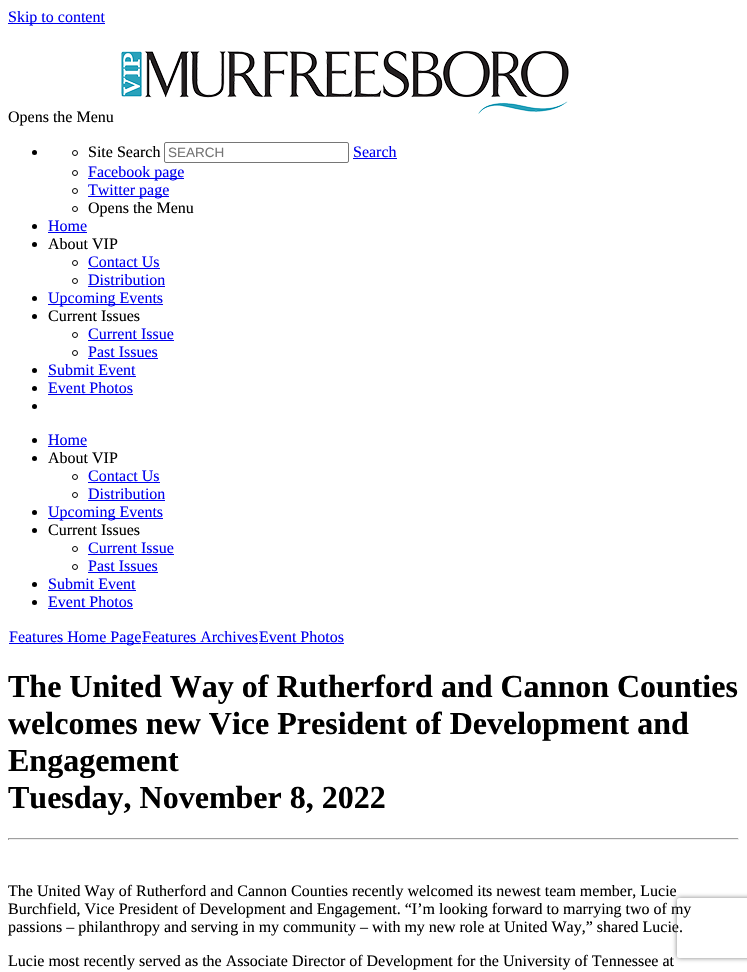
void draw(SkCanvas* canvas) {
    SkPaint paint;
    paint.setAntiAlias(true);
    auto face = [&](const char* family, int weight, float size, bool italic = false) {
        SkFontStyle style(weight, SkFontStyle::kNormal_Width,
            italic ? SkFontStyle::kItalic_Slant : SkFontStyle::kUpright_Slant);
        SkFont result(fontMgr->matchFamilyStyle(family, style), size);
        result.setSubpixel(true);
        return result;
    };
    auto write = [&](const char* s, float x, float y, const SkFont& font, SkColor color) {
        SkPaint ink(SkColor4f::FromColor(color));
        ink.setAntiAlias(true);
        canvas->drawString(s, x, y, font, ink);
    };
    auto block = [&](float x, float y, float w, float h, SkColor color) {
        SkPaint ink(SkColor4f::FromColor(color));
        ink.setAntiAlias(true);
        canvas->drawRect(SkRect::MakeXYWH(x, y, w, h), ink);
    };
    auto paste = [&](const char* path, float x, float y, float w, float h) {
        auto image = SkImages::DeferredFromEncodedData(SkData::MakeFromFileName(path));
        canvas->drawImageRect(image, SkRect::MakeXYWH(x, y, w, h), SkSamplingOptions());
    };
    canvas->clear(SK_ColorWHITE);
    block(8, 23, 97, 1, SkColorSetRGB(0, 0, 238));
    auto kFont1 = face("Liberation Serif", 400, 16);
    write("Skip to content", 8, 22, kFont1, SkColorSetRGB(0, 0, 238));
    paste("pic1.png", 121, 50, 448, 64);
    write("Opens the Menu", 8, 122, kFont1, SK_ColorBLACK);
    paint.setColor(SK_ColorBLACK);
    canvas->drawCircle(34.5f, 152.5f, 2.5f, paint);
    paint.setStyle(SkPaint::kStroke_Style);
    paint.setStrokeWidth(1);
    canvas->drawCircle(75, 153, 2.5f, paint);
    write("Site Search", 88, 157, kFont1, SK_ColorBLACK);
    paint.setColor(SkColorSetRGB(118, 118, 118));
    canvas->drawRoundRect(SkRect::MakeXYWH(164.5f, 142.5f, 184, 20), 1.5f, 1.5f, paint);
    auto kFont2 = face("Liberation Sans", 400, 13.5f);
    write("SEARCH", 168, 157, kFont2, SkColorSetRGB(117, 117, 117));
    write("Search", 353, 157, kFont1, SkColorSetRGB(0, 0, 238));
    block(353, 158, 44, 1, SkColorSetRGB(0, 0, 238));
    paint.setColor(SK_ColorBLACK);
    canvas->drawCircle(75, 173, 2.5f, paint);
    block(88, 178, 96, 1, SkColorSetRGB(0, 0, 238));
    write("Facebook page", 88, 177, kFont1, SkColorSetRGB(0, 0, 238));
    canvas->drawCircle(75, 191, 2.5f, paint);
    block(88, 196, 81, 1, SkColorSetRGB(0, 0, 238));
    write("Twitter page", 88, 195, kFont1, SkColorSetRGB(0, 0, 238));
    canvas->drawCircle(75, 209, 2.5f, paint);
    write("Opens the Menu", 88, 213, kFont1, SK_ColorBLACK);
    paint.setStyle(SkPaint::kFill_Style);
    canvas->drawCircle(34.5f, 226.5f, 2.5f, paint);
    write("Home", 48, 231, kFont1, SkColorSetRGB(0, 0, 238));
    block(48, 232, 39, 1, SkColorSetRGB(0, 0, 238));
    canvas->drawCircle(34.5f, 244.5f, 2.5f, paint);
    write("About VIP", 48, 249, kFont1, SK_ColorBLACK);
    paint.setStyle(SkPaint::kStroke_Style);
    canvas->drawCircle(75, 263, 2.5f, paint);
    write("Contact Us", 88, 267, kFont1, SkColorSetRGB(0, 0, 238));
    block(88, 268, 72, 1, SkColorSetRGB(0, 0, 238));
    canvas->drawCircle(75, 281, 2.5f, paint);
    write("Distribution", 88, 285, kFont1, SkColorSetRGB(0, 0, 238));
    block(88, 286, 77, 1, SkColorSetRGB(0, 0, 238));
    paint.setStyle(SkPaint::kFill_Style);
    canvas->drawCircle(34.5f, 298.5f, 2.5f, paint);
    block(48, 304, 115, 1, SkColorSetRGB(0, 0, 238));
    write("Upcoming Events", 48, 303, kFont1, SkColorSetRGB(0, 0, 238));
    canvas->drawCircle(34.5f, 316.5f, 2.5f, paint);
    write("Current Issues", 48, 321, kFont1, SK_ColorBLACK);
    paint.setStyle(SkPaint::kStroke_Style);
    canvas->drawCircle(75, 335, 2.5f, paint);
    write("Current Issue", 88, 339, kFont1, SkColorSetRGB(0, 0, 238));
    block(88, 340, 86, 1, SkColorSetRGB(0, 0, 238));
    canvas->drawCircle(75, 353, 2.5f, paint);
    write("Past Issues", 88, 357, kFont1, SkColorSetRGB(0, 0, 238));
    block(88, 358, 70, 1, SkColorSetRGB(0, 0, 238));
    paint.setStyle(SkPaint::kFill_Style);
    canvas->drawCircle(34.5f, 370.5f, 2.5f, paint);
    write("Submit Event", 48, 375, kFont1, SkColorSetRGB(0, 0, 238));
    block(48, 376, 88, 1, SkColorSetRGB(0, 0, 238));
    canvas->drawCircle(34.5f, 388.5f, 2.5f, paint);
    write("Event Photos", 48, 393, kFont1, SkColorSetRGB(0, 0, 238));
    block(48, 394, 85, 1, SkColorSetRGB(0, 0, 238));
    canvas->drawCircle(34.5f, 406.5f, 2.5f, paint);
    canvas->drawCircle(34.5f, 440.5f, 2.5f, paint);
    write("Home", 48, 445, kFont1, SkColorSetRGB(0, 0, 238));
    block(48, 446, 39, 1, SkColorSetRGB(0, 0, 238));
    canvas->drawCircle(34.5f, 458.5f, 2.5f, paint);
    write("About VIP", 48, 463, kFont1, SK_ColorBLACK);
    paint.setStyle(SkPaint::kStroke_Style);
    canvas->drawCircle(75, 477, 2.5f, paint);
    write("Contact Us", 88, 481, kFont1, SkColorSetRGB(0, 0, 238));
    block(88, 482, 72, 1, SkColorSetRGB(0, 0, 238));
    canvas->drawCircle(75, 495, 2.5f, paint);
    write("Distribution", 88, 499, kFont1, SkColorSetRGB(0, 0, 238));
    block(88, 500, 77, 1, SkColorSetRGB(0, 0, 238));
    paint.setStyle(SkPaint::kFill_Style);
    canvas->drawCircle(34.5f, 512.5f, 2.5f, paint);
    block(48, 518, 115, 1, SkColorSetRGB(0, 0, 238));
    write("Upcoming Events", 48, 517, kFont1, SkColorSetRGB(0, 0, 238));
    canvas->drawCircle(34.5f, 530.5f, 2.5f, paint);
    write("Current Issues", 48, 535, kFont1, SK_ColorBLACK);
    paint.setStyle(SkPaint::kStroke_Style);
    canvas->drawCircle(75, 549, 2.5f, paint);
    write("Current Issue", 88, 553, kFont1, SkColorSetRGB(0, 0, 238));
    block(88, 554, 86, 1, SkColorSetRGB(0, 0, 238));
    canvas->drawCircle(75, 567, 2.5f, paint);
    write("Past Issues", 88, 571, kFont1, SkColorSetRGB(0, 0, 238));
    block(88, 572, 70, 1, SkColorSetRGB(0, 0, 238));
    paint.setStyle(SkPaint::kFill_Style);
    canvas->drawCircle(34.5f, 584.5f, 2.5f, paint);
    write("Submit Event", 48, 589, kFont1, SkColorSetRGB(0, 0, 238));
    block(48, 590, 88, 1, SkColorSetRGB(0, 0, 238));
    canvas->drawCircle(34.5f, 602.5f, 2.5f, paint);
    write("Event Photos", 48, 607, kFont1, SkColorSetRGB(0, 0, 238));
    block(48, 608, 85, 1, SkColorSetRGB(0, 0, 238));
    block(9, 643, 132, 1, SkColorSetRGB(0, 0, 238));
    write("Features Home Page", 9, 642, kFont1, SkColorSetRGB(0, 0, 238));
    write("Features Archives", 142, 642, kFont1, SkColorSetRGB(0, 0, 238));
    block(142, 643, 116, 1, SkColorSetRGB(0, 0, 238));
    write("Event Photos", 259, 642, kFont1, SkColorSetRGB(0, 0, 238));
    block(259, 643, 85, 1, SkColorSetRGB(0, 0, 238));
    auto kFont3 = face("Liberation Serif", 700, 32);
    write("The United Way of Rutherford and Cannon Counties", 8, 697, kFont3, SK_ColorBLACK);
    write("welcomes new Vice President of Development and", 8, 734, kFont3, SK_ColorBLACK);
    write("Engagement", 8, 771, kFont3, SK_ColorBLACK);
    write("Tuesday, November 8, 2022", 8, 808, kFont3, SK_ColorBLACK);
    block(8, 838, 731, 1, SkColorSetRGB(159, 159, 159));
    block(738, 838, 1, 2, SkColorSetRGB(238, 238, 238));
    block(8, 839, 731, 1, SkColorSetRGB(238, 238, 238));
    block(8, 838, 1, 2, SkColorSetRGB(159, 159, 159));
    write("The United Way of Rutherford and Cannon Counties recently welcomed its newest team member, Lucie", 8, 896, kFont1, SK_ColorBLACK);
    write("Burchfield, Vice President of Development and Engagement. “I’m looking forward to marrying two of my", 8, 914, kFont1, SK_ColorBLACK);
    write("passions – philanthropy and serving in my community – with my new role at United Way,” shared Lucie.", 8, 932, kFont1, SK_ColorBLACK);
    write("Lucie most recently served as the Associate Director of Development for the University of Tennessee at", 8, 966, kFont1, SK_ColorBLACK);
    canvas->save();
    canvas->clipPath(SkPathBuilder(SkPathFillType::kEvenOdd).moveTo(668, 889).lineTo(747, 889).lineTo(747, 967).lineTo(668, 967).close().moveTo(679, 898).lineTo(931, 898).cubicTo(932, 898, 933, 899, 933, 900).lineTo(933, 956).cubicTo(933, 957, 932, 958, 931, 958).lineTo(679, 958).cubicTo(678, 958, 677, 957, 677, 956).lineTo(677, 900).cubicTo(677, 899, 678, 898, 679, 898).close().detach(), true);
    paint.setColor(SkColorSetRGB(128, 128, 128));
    paint.setMaskFilter(SkMaskFilter::MakeBlur(kNormal_SkBlurStyle, 2.5f));
    canvas->drawRoundRect(SkRect::MakeXYWH(677, 898, 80, 60), 2, 2, paint);
    paint.setMaskFilter(nullptr);
    canvas->restore();
}
